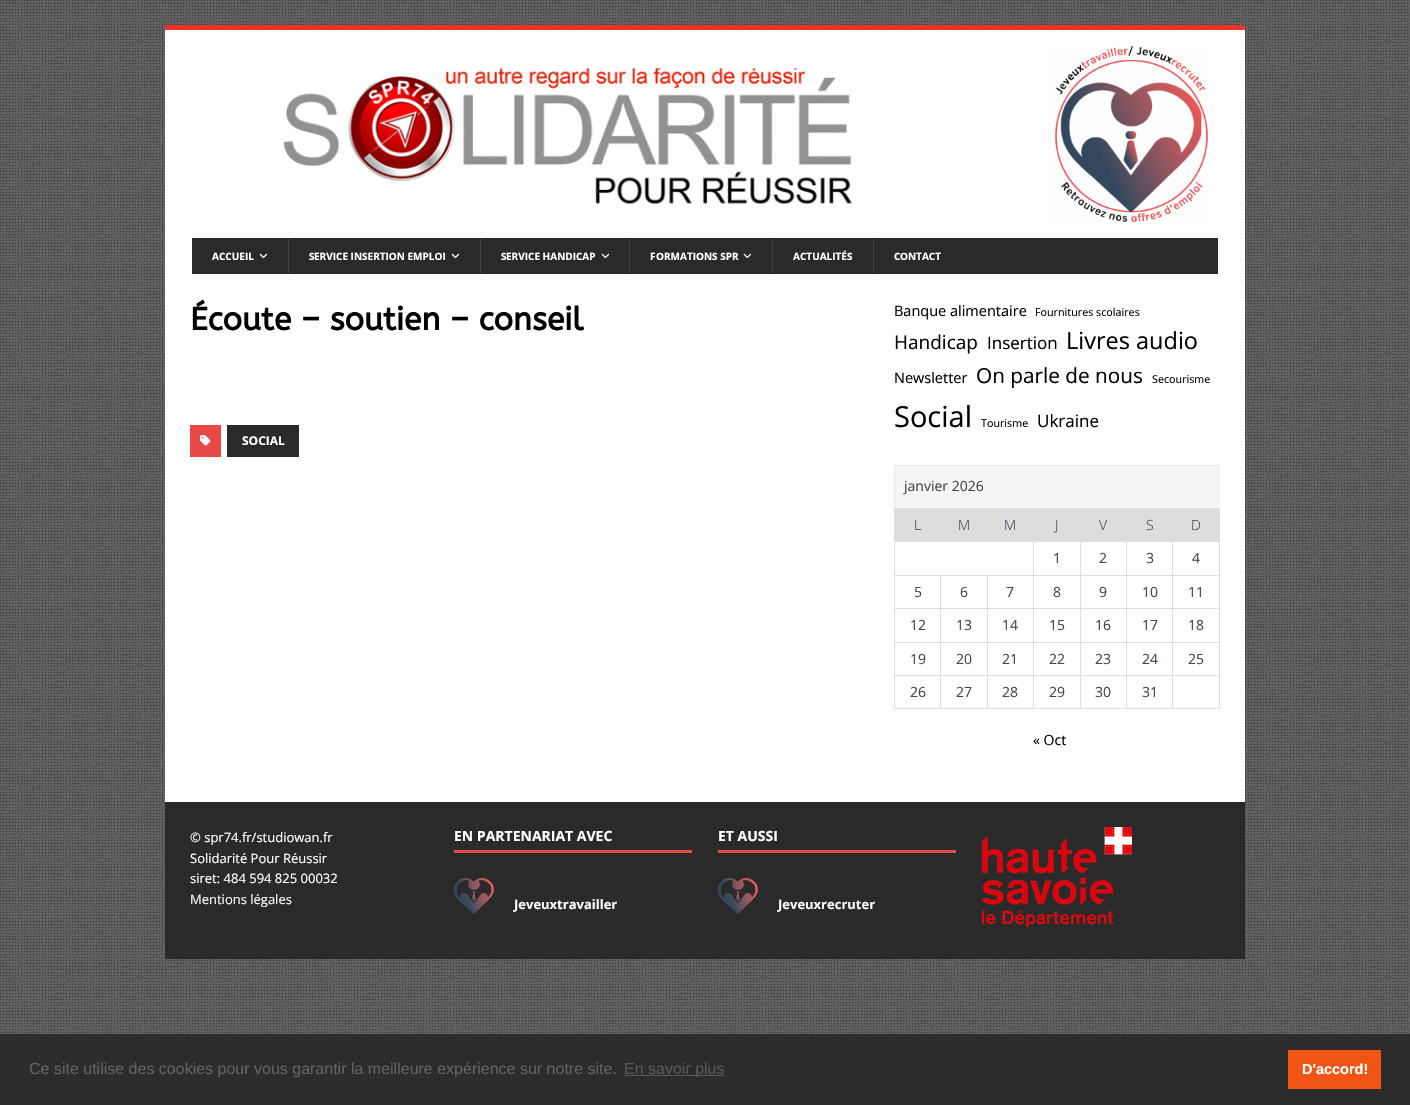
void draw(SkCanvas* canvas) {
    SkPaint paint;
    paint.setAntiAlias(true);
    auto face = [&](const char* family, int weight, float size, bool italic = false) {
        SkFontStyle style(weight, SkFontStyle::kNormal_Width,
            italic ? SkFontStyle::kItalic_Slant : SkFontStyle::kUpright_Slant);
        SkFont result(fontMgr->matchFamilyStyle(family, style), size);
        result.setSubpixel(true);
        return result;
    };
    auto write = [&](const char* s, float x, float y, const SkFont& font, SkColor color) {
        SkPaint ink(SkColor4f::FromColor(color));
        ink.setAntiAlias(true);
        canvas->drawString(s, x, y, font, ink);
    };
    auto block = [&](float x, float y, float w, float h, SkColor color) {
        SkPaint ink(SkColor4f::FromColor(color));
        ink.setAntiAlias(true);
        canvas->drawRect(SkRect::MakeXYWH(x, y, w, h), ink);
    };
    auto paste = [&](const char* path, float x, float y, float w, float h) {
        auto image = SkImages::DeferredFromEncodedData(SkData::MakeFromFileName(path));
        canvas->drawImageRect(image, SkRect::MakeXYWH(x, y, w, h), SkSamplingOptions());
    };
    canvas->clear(SK_ColorWHITE);
    paste("pic1.png", 0, 0, 1410, 1034);
    block(165, 30, 1080, 772, SK_ColorWHITE);
    block(165, 25, 1080, 5, SkColorSetRGB(238, 50, 36));
    paste("pic2.png", 283, 54, 765, 159);
    paste("pic3.png", 1048, 46, 160, 177);
    block(192, 238, 1026, 36, SkColorSetRGB(42, 42, 42));
    auto kFont1 = face("Noto Sans", 700, 10);
    write("A", 212, 260, kFont1, SK_ColorWHITE);
    auto kFont2 = face("Open Sans", 700, 10);
    write("CCUEIL", 219, 260, kFont2, SK_ColorWHITE);
    paste("pic4.png", 259, 253, 9, 6);
    block(288, 238, 1, 36, SkColorSetRGB(63, 63, 63));
    write("S", 309, 260, kFont1, SK_ColorWHITE);
    write("ERVICE INSERTION EMPLOI", 314, 260, kFont2, SK_ColorWHITE);
    paste("pic4.png", 451, 253, 9, 6);
    block(480, 238, 1, 36, SkColorSetRGB(63, 63, 63));
    write("S", 501, 260, kFont1, SK_ColorWHITE);
    write("ERVICE HANDICAP", 506, 260, kFont2, SK_ColorWHITE);
    paste("pic4.png", 601, 253, 9, 6);
    block(629, 238, 1, 36, SkColorSetRGB(63, 63, 63));
    write("F", 650, 260, kFont1, SK_ColorWHITE);
    write("ORMATIONS SPR", 656, 260, kFont2, SK_ColorWHITE);
    paste("pic4.png", 743, 253, 9, 6);
    block(772, 238, 1, 36, SkColorSetRGB(63, 63, 63));
    write("A", 793, 260, kFont1, SK_ColorWHITE);
    write("CTUALITÉS", 800, 260, kFont2, SK_ColorWHITE);
    block(873, 238, 1, 36, SkColorSetRGB(63, 63, 63));
    write("C", 894, 260, kFont1, SK_ColorWHITE);
    write("ONTACT", 900, 260, kFont2, SK_ColorWHITE);
    auto kFont3 = face("ABeeZee", 700, 32);
    write("Écoute – soutien – conseil", 190, 330, kFont3, SK_ColorBLACK);
    block(190, 425, 31, 32, SkColorSetRGB(230, 73, 70));
    paste("pic5.png", 200, 435, 11, 11);
    block(227, 425, 72, 32, SkColorSetRGB(42, 42, 42));
    auto kFont4 = face("Open Sans", 700, 12);
    write("SOCIAL", 242, 445, kFont4, SK_ColorWHITE);
    auto kFont5 = face("Open Sans", 400, 14.5f);
    write("Banque alimentaire", 894, 316, kFont5, SK_ColorBLACK);
    auto kFont6 = face("Open Sans", 400, 10.75f);
    write("Fournitures scolaires", 1035, 316, kFont6, SK_ColorBLACK);
    auto kFont7 = face("Open Sans", 400, 19);
    write("Handicap", 894, 349, kFont7, SK_ColorBLACK);
    auto kFont8 = face("Open Sans", 400, 17);
    write("Insertion", 987, 349, kFont8, SK_ColorBLACK);
    auto kFont9 = face("Open Sans", 400, 23.5f);
    write("Livres audio", 1066, 349, kFont9, SK_ColorBLACK);
    write("Newsletter", 894, 383, kFont5, SK_ColorBLACK);
    auto kFont10 = face("Open Sans", 400, 20.75f);
    write("On parle de nous", 976, 383, kFont10, SK_ColorBLACK);
    write("Secourisme", 1152, 383, kFont6, SK_ColorBLACK);
    auto kFont11 = face("Open Sans", 400, 29);
    write("Social", 894, 427, kFont11, SK_ColorBLACK);
    write("Tourisme", 981, 427, kFont6, SK_ColorBLACK);
    write("Ukraine", 1037, 427, kFont8, SK_ColorBLACK);
    block(894, 465, 326, 1, SkColorSetRGB(235, 235, 235));
    block(894, 465, 1, 43, SkColorSetRGB(235, 235, 235));
    block(895, 466, 325, 41, SkColorSetRGB(245, 245, 245));
    auto kFont12 = face("Open Sans", 400, 14);
    write("janvier 2026", 904, 491, kFont12, SkColorSetRGB(64, 70, 77));
    block(895, 509, 139, 32, SkColorSetRGB(221, 221, 221));
    block(894, 508, 326, 1, SkColorSetRGB(221, 221, 221));
    block(1172, 575, 48, 1, SkColorSetRGB(221, 221, 221));
    block(1172, 608, 48, 1, SkColorSetRGB(221, 221, 221));
    block(1172, 642, 48, 1, SkColorSetRGB(221, 221, 221));
    block(1172, 675, 48, 1, SkColorSetRGB(221, 221, 221));
    block(1219, 675, 1, 34, SkColorSetRGB(221, 221, 221));
    block(1172, 708, 48, 1, SkColorSetRGB(221, 221, 221));
    block(1172, 675, 1, 34, SkColorSetRGB(221, 221, 221));
    block(1126, 675, 47, 1, SkColorSetRGB(221, 221, 221));
    block(1172, 642, 1, 34, SkColorSetRGB(221, 221, 221));
    block(1126, 642, 47, 1, SkColorSetRGB(221, 221, 221));
    block(1172, 608, 1, 35, SkColorSetRGB(221, 221, 221));
    block(1126, 608, 47, 1, SkColorSetRGB(221, 221, 221));
    block(1172, 575, 1, 34, SkColorSetRGB(221, 221, 221));
    block(1126, 575, 47, 1, SkColorSetRGB(221, 221, 221));
    block(1126, 708, 47, 1, SkColorSetRGB(221, 221, 221));
    block(1126, 675, 1, 34, SkColorSetRGB(221, 221, 221));
    block(1080, 675, 47, 1, SkColorSetRGB(221, 221, 221));
    block(1126, 642, 1, 34, SkColorSetRGB(221, 221, 221));
    block(1080, 642, 47, 1, SkColorSetRGB(221, 221, 221));
    block(1126, 608, 1, 35, SkColorSetRGB(221, 221, 221));
    block(1080, 608, 47, 1, SkColorSetRGB(221, 221, 221));
    block(1126, 575, 1, 34, SkColorSetRGB(221, 221, 221));
    block(1080, 575, 47, 1, SkColorSetRGB(221, 221, 221));
    block(1080, 708, 47, 1, SkColorSetRGB(221, 221, 221));
    block(1080, 675, 1, 34, SkColorSetRGB(221, 221, 221));
    block(1033, 675, 48, 1, SkColorSetRGB(221, 221, 221));
    block(1080, 642, 1, 34, SkColorSetRGB(221, 221, 221));
    block(1033, 642, 48, 1, SkColorSetRGB(221, 221, 221));
    block(1080, 608, 1, 35, SkColorSetRGB(221, 221, 221));
    block(1033, 608, 48, 1, SkColorSetRGB(221, 221, 221));
    block(1080, 575, 1, 34, SkColorSetRGB(221, 221, 221));
    block(1033, 575, 48, 1, SkColorSetRGB(221, 221, 221));
    block(1033, 708, 48, 1, SkColorSetRGB(221, 221, 221));
    block(1033, 675, 1, 34, SkColorSetRGB(221, 221, 221));
    block(987, 675, 47, 1, SkColorSetRGB(221, 221, 221));
    block(1033, 642, 1, 34, SkColorSetRGB(221, 221, 221));
    block(987, 642, 47, 1, SkColorSetRGB(221, 221, 221));
    block(1033, 608, 1, 35, SkColorSetRGB(221, 221, 221));
    block(987, 608, 47, 1, SkColorSetRGB(221, 221, 221));
    block(1033, 575, 1, 34, SkColorSetRGB(221, 221, 221));
    block(987, 575, 47, 1, SkColorSetRGB(221, 221, 221));
    block(1033, 541, 1, 35, SkColorSetRGB(221, 221, 221));
    block(894, 541, 140, 1, SkColorSetRGB(221, 221, 221));
    block(987, 708, 47, 1, SkColorSetRGB(221, 221, 221));
    block(987, 675, 1, 34, SkColorSetRGB(221, 221, 221));
    block(940, 675, 48, 1, SkColorSetRGB(221, 221, 221));
    block(987, 642, 1, 34, SkColorSetRGB(221, 221, 221));
    block(940, 642, 48, 1, SkColorSetRGB(221, 221, 221));
    block(987, 608, 1, 35, SkColorSetRGB(221, 221, 221));
    block(940, 608, 48, 1, SkColorSetRGB(221, 221, 221));
    block(987, 575, 1, 34, SkColorSetRGB(221, 221, 221));
    block(940, 575, 48, 1, SkColorSetRGB(221, 221, 221));
    block(940, 708, 48, 1, SkColorSetRGB(221, 221, 221));
    block(940, 675, 1, 34, SkColorSetRGB(221, 221, 221));
    block(894, 675, 47, 1, SkColorSetRGB(221, 221, 221));
    block(940, 642, 1, 34, SkColorSetRGB(221, 221, 221));
    block(894, 642, 47, 1, SkColorSetRGB(221, 221, 221));
    block(940, 608, 1, 35, SkColorSetRGB(221, 221, 221));
    block(894, 608, 47, 1, SkColorSetRGB(221, 221, 221));
    block(940, 575, 1, 34, SkColorSetRGB(221, 221, 221));
    block(894, 575, 47, 1, SkColorSetRGB(221, 221, 221));
    block(894, 708, 47, 1, SkColorSetRGB(221, 221, 221));
    block(894, 675, 1, 34, SkColorSetRGB(221, 221, 221));
    block(894, 642, 1, 34, SkColorSetRGB(221, 221, 221));
    block(894, 608, 1, 35, SkColorSetRGB(221, 221, 221));
    block(894, 575, 1, 34, SkColorSetRGB(221, 221, 221));
    block(894, 541, 1, 35, SkColorSetRGB(221, 221, 221));
    block(894, 508, 1, 34, SkColorSetRGB(221, 221, 221));
    auto kFont13 = face("Open Sans", 300, 14);
    write("L", 914, 530, kFont13, SkColorSetRGB(64, 70, 77));
    write("M", 958, 530, kFont13, SkColorSetRGB(64, 70, 77));
    write("M", 1004, 530, kFont13, SkColorSetRGB(64, 70, 77));
    block(1034, 509, 139, 33, SkColorSetRGB(221, 221, 221));
    write("J", 1055, 530, kFont13, SkColorSetRGB(64, 70, 77));
    write("V", 1099, 530, kFont13, SkColorSetRGB(64, 70, 77));
    write("S", 1146, 530, kFont13, SkColorSetRGB(64, 70, 77));
    block(1173, 509, 46, 32, SkColorSetRGB(221, 221, 221));
    block(1172, 541, 48, 1, SkColorSetRGB(221, 221, 221));
    block(1219, 642, 1, 34, SkColorSetRGB(221, 221, 221));
    block(1219, 608, 1, 35, SkColorSetRGB(221, 221, 221));
    block(1219, 575, 1, 34, SkColorSetRGB(221, 221, 221));
    block(1219, 541, 1, 35, SkColorSetRGB(221, 221, 221));
    block(1219, 508, 1, 34, SkColorSetRGB(221, 221, 221));
    write("D", 1191, 530, kFont13, SkColorSetRGB(64, 70, 77));
    write("1", 1053, 563, kFont12, SkColorSetRGB(64, 70, 77));
    block(1080, 541, 1, 35, SkColorSetRGB(221, 221, 221));
    write("2", 1099, 563, kFont12, SkColorSetRGB(64, 70, 77));
    block(1126, 541, 1, 35, SkColorSetRGB(221, 221, 221));
    write("3", 1146, 563, kFont12, SkColorSetRGB(64, 70, 77));
    block(1172, 541, 1, 35, SkColorSetRGB(221, 221, 221));
    write("4", 1192, 563, kFont12, SkColorSetRGB(64, 70, 77));
    write("5", 914, 597, kFont12, SkColorSetRGB(64, 70, 77));
    write("6", 960, 597, kFont12, SkColorSetRGB(64, 70, 77));
    write("7", 1006, 597, kFont12, SkColorSetRGB(64, 70, 77));
    write("8", 1053, 597, kFont12, SkColorSetRGB(64, 70, 77));
    write("9", 1099, 597, kFont12, SkColorSetRGB(64, 70, 77));
    write("10", 1142, 597, kFont12, SkColorSetRGB(64, 70, 77));
    write("11", 1188, 597, kFont12, SkColorSetRGB(64, 70, 77));
    write("12", 910, 630, kFont12, SkColorSetRGB(64, 70, 77));
    write("13", 956, 630, kFont12, SkColorSetRGB(64, 70, 77));
    write("14", 1002, 630, kFont12, SkColorSetRGB(64, 70, 77));
    write("15", 1049, 630, kFont12, SkColorSetRGB(64, 70, 77));
    write("16", 1095, 630, kFont12, SkColorSetRGB(64, 70, 77));
    write("17", 1142, 630, kFont12, SkColorSetRGB(64, 70, 77));
    write("18", 1188, 630, kFont12, SkColorSetRGB(64, 70, 77));
    write("19", 910, 664, kFont12, SkColorSetRGB(64, 70, 77));
    write("20", 956, 664, kFont12, SkColorSetRGB(64, 70, 77));
    write("21", 1002, 664, kFont12, SkColorSetRGB(64, 70, 77));
    write("22", 1049, 664, kFont12, SkColorSetRGB(64, 70, 77));
    write("23", 1095, 664, kFont12, SkColorSetRGB(64, 70, 77));
    write("24", 1142, 664, kFont12, SkColorSetRGB(64, 70, 77));
    write("25", 1188, 664, kFont12, SkColorSetRGB(64, 70, 77));
    write("26", 910, 697, kFont12, SkColorSetRGB(64, 70, 77));
    write("27", 956, 697, kFont12, SkColorSetRGB(64, 70, 77));
    write("28", 1002, 697, kFont12, SkColorSetRGB(64, 70, 77));
    write("29", 1049, 697, kFont12, SkColorSetRGB(64, 70, 77));
    write("30", 1095, 697, kFont12, SkColorSetRGB(64, 70, 77));
    write("31", 1142, 697, kFont12, SkColorSetRGB(64, 70, 77));
    write("« Oct", 1033, 745, kFont12, SK_ColorBLACK);
    block(165, 802, 1080, 157, SkColorSetRGB(42, 42, 42));
    auto kFont14 = face("Open Sans", 400, 13);
    write("© spr74.fr/studiowan.fr", 190, 842, kFont14, SK_ColorWHITE);
    write("Solidarité Pour Réussir", 190, 863, kFont14, SK_ColorWHITE);
    write("siret: 484 594 825 00032", 190, 883, kFont14, SK_ColorWHITE);
    write("Mentions légales", 190, 904, kFont14, SkColorSetRGB(247, 247, 247));
    block(454, 850, 238, 3, SkColorSetRGB(230, 73, 70));
    auto kFont15 = face("Open Sans", 700, 14);
    write("EN PARTENARIAT AVEC", 454, 841, kFont15, SK_ColorWHITE);
    paste("pic6.png", 454, 878, 40, 36);
    auto kFont16 = face("Open Sans", 700, 13);
    write("Jeveuxtravailler", 514, 909, kFont16, SkColorSetRGB(247, 247, 247));
    block(718, 850, 238, 3, SkColorSetRGB(230, 73, 70));
    write("ET AUSSI", 718, 841, kFont15, SK_ColorWHITE);
    paste("pic6.png", 718, 878, 40, 36);
    write("Jeveuxrecruter", 778, 909, kFont16, SkColorSetRGB(247, 247, 247));
    paste("pic7.png", 982, 827, 150, 100);
    block(0, 1034, 1410, 71, SkColorSetRGB(44, 44, 44));
    auto kFont17 = face("Liberation Sans", 400, 16);
    write("Ce site utilise des cookies pour vous garantir la meilleure expérience sur notre site.", 29, 1074, kFont17, SkColorSetRGB(99, 98, 98));
    block(624, 1075, 101, 1, SkColorSetRGB(88, 87, 87));
    write("En savoir plus", 624, 1074, kFont17, SkColorSetRGB(88, 87, 87));
    block(1288, 1050, 93, 39, SkColorSetRGB(242, 84, 22));
    auto kFont18 = face("Liberation Sans", 700, 14.5f);
    write("D'accord!", 1302, 1074, kFont18, SK_ColorWHITE);
}
